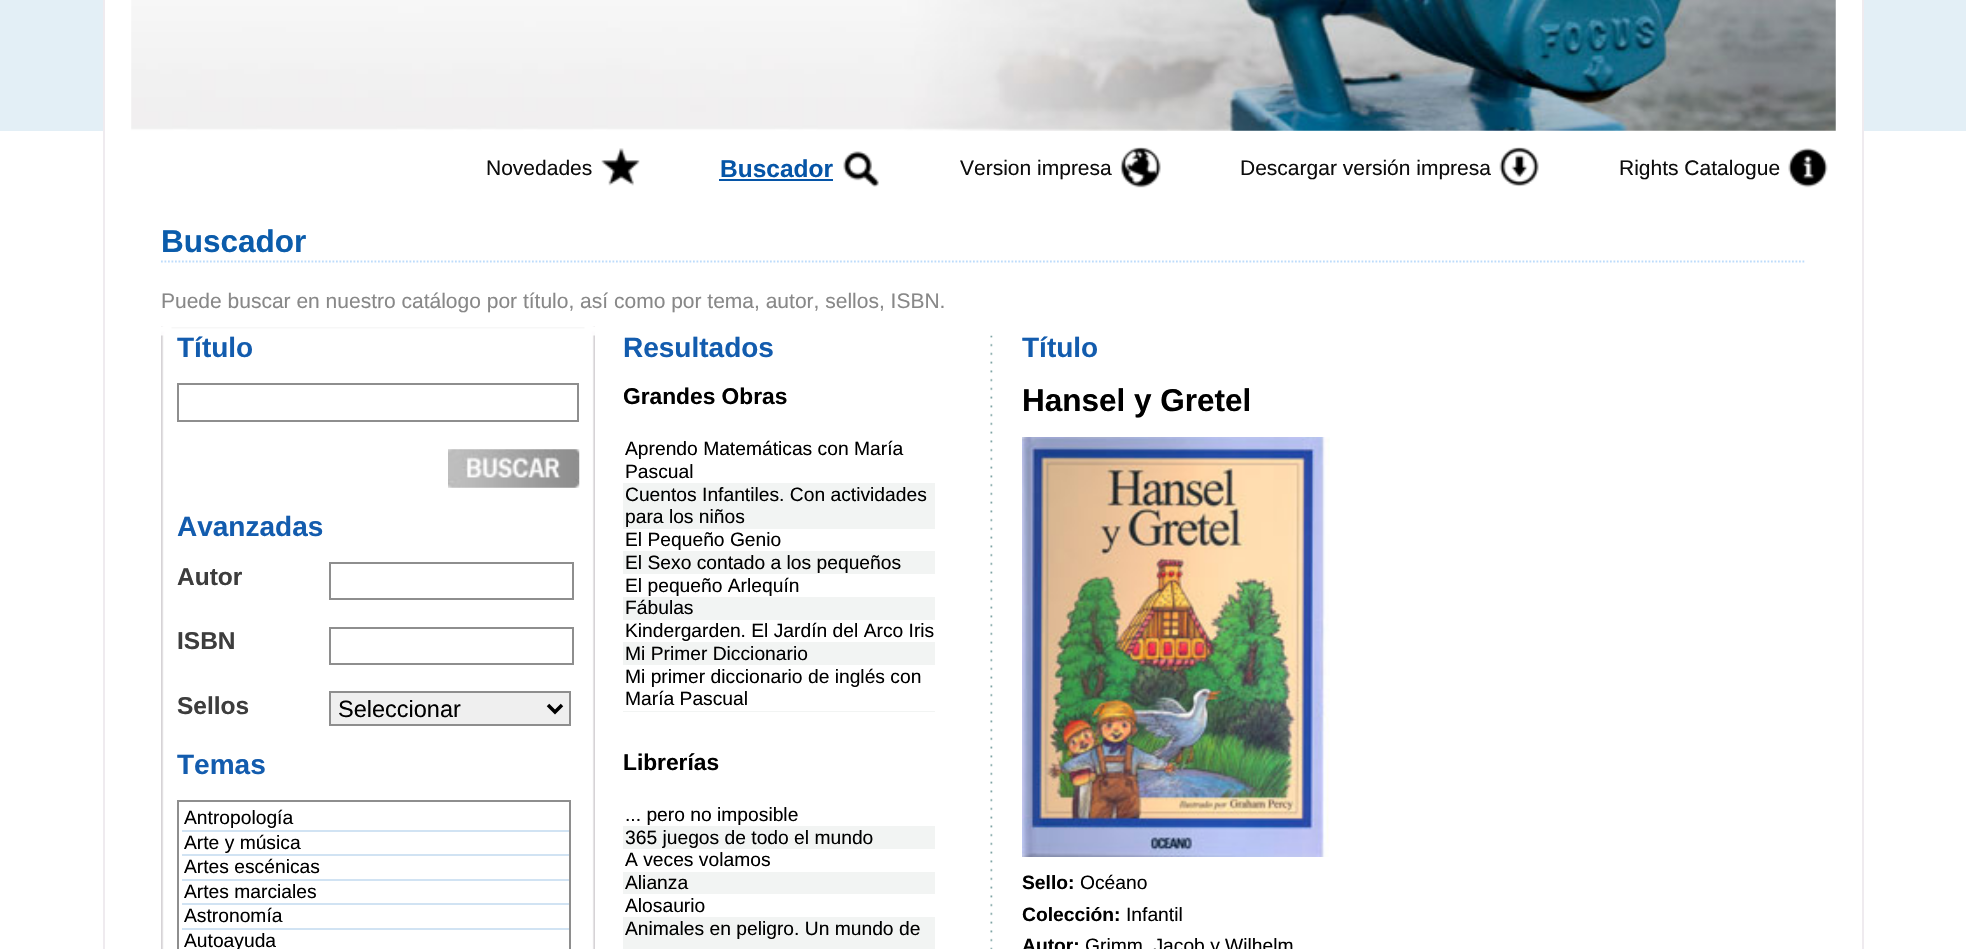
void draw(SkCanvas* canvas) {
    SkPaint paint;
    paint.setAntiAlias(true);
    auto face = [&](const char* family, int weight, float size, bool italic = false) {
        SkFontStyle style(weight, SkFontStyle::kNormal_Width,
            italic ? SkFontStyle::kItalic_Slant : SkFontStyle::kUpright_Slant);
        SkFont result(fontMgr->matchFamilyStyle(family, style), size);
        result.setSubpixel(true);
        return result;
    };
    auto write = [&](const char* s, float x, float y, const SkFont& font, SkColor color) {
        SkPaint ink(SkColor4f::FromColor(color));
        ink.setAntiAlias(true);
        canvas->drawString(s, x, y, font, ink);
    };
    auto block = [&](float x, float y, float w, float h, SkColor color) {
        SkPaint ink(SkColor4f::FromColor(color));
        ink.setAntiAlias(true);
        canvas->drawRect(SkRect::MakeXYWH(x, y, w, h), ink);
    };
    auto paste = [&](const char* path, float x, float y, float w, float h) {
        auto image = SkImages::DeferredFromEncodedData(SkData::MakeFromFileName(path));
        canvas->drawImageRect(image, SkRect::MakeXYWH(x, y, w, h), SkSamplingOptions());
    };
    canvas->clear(SK_ColorWHITE);
    block(0, 0, 1966, 131, SkColorSetRGB(227, 239, 246));
    block(1862, 0, 2, 949, SkColorSetRGB(239, 235, 239));
    block(103, 0, 2, 949, SkColorSetRGB(239, 235, 239));
    block(105, 0, 1757, 131, SK_ColorWHITE);
    paste("pic1.png", 131, 0, 1705, 131);
    auto kFont1 = face("Liberation Sans", 400, 21);
    write("Novedades", 486, 175, kFont1, SkColorSetRGB(13, 13, 13));
    paste("pic2.png", 601, 148, 39, 38);
    auto kFont2 = face("Liberation Sans", 700, 24.5f);
    write("Buscador", 720, 177, kFont2, SkColorSetRGB(6, 85, 167));
    block(719, 179, 114, 2, SkColorSetRGB(6, 85, 167));
    paste("pic3.png", 843, 151, 36, 36);
    write("Version impresa", 960, 175, kFont1, SkColorSetRGB(13, 13, 13));
    paste("pic4.png", 1120, 147, 41, 41);
    write("Descargar versión impresa", 1240, 175, kFont1, SkColorSetRGB(13, 13, 13));
    paste("pic5.png", 1499, 147, 40, 40);
    write("Rights Catalogue", 1619, 175, kFont1, SkColorSetRGB(13, 13, 13));
    paste("pic6.png", 1788, 148, 40, 40);
    paint.setStyle(SkPaint::kStroke_Style);
    paint.setStrokeWidth(1.8f);
    paint.setColor(SkColorSetRGB(189, 220, 251));
    paint.setPathEffect(SkDashPathEffect::Make({{1.75f, 1.75f}}, 0));
    canvas->drawPath(SkPathBuilder().moveTo(161, 261.5f).lineTo(1806, 261.5f).detach(), paint);
    paint.setPathEffect(nullptr);
    auto kFont3 = face("Liberation Sans", 700, 31.5f);
    write("Buscador", 161, 252, kFont3, SkColorSetRGB(11, 92, 171));
    write("Puede buscar en nuestro catálogo por título, así como por tema, autor, sellos, ISBN.", 161, 308, kFont1, SkColorSetRGB(136, 136, 136));
    paste("pic7.png", 161, 326, 434, 623);
    paste("pic8.png", 161, 327, 434, 9);
    auto kFont4 = face("Liberation Sans", 700, 28);
    write("Título", 177, 357, kFont4, SkColorSetRGB(19, 92, 174));
    paint.setStrokeWidth(2);
    paint.setColor(SkColorSetRGB(142, 142, 142));
    canvas->drawRect(SkRect::MakeXYWH(178, 384, 400, 37), paint);
    paste("pic9.png", 448, 449, 132, 39);
    write("Avanzadas", 177, 536, kFont4, SkColorSetRGB(19, 92, 174));
    write("Autor", 177, 585, kFont2, SkColorSetRGB(61, 61, 61));
    canvas->drawRect(SkRect::MakeXYWH(330, 563, 243, 36), paint);
    write("ISBN", 177, 649, kFont2, SkColorSetRGB(61, 61, 61));
    canvas->drawRect(SkRect::MakeXYWH(330, 628, 243, 36), paint);
    write("Sellos", 177, 714, kFont2, SkColorSetRGB(61, 61, 61));
    paint.setStyle(SkPaint::kFill_Style);
    paint.setColor(SkColorSetRGB(239, 239, 239));
    canvas->drawRect(SkRect::MakeXYWH(330, 692, 240, 33), paint);
    paint.setStyle(SkPaint::kStroke_Style);
    paint.setColor(SkColorSetRGB(142, 142, 142));
    canvas->drawRect(SkRect::MakeXYWH(330, 692, 240, 33), paint);
    paint.setStrokeWidth(3.5f);
    paint.setColor(SK_ColorBLACK);
    canvas->drawPath(SkPathBuilder().moveTo(548, 705).lineTo(555, 712).lineTo(562, 705).detach(), paint);
    auto kFont5 = face("Liberation Sans", 400, 23.5f);
    write("Seleccionar", 338, 717, kFont5, SK_ColorBLACK);
    write("Temas", 177, 774, kFont4, SkColorSetRGB(19, 92, 174));
    paint.setStrokeWidth(2);
    paint.setColor(SkColorSetRGB(142, 142, 142));
    canvas->drawRect(SkRect::MakeXYWH(178, 801, 392, 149), paint);
    block(182, 830, 387, 2, SkColorSetRGB(209, 227, 243));
    auto kFont6 = face("Liberation Sans", 400, 19.25f);
    write("Antropología", 184, 824, kFont6, SK_ColorBLACK);
    block(182, 854, 387, 2, SkColorSetRGB(209, 227, 243));
    write("Arte y música", 184, 849, kFont6, SK_ColorBLACK);
    block(182, 879, 387, 2, SkColorSetRGB(209, 227, 243));
    write("Artes escénicas", 184, 873, kFont6, SK_ColorBLACK);
    block(182, 903, 387, 2, SkColorSetRGB(209, 227, 243));
    write("Artes marciales", 184, 898, kFont6, SK_ColorBLACK);
    block(182, 928, 387, 2, SkColorSetRGB(209, 227, 243));
    write("Astronomía", 184, 922, kFont6, SK_ColorBLACK);
    write("Autoayuda", 184, 947, kFont6, SK_ColorBLACK);
    paste("pic10.png", 990, 335, 3, 614);
    write("Resultados", 623, 357, kFont4, SkColorSetRGB(19, 92, 174));
    auto kFont7 = face("Liberation Sans", 700, 22.75f);
    write("Grandes Obras", 623, 404, kFont7, SK_ColorBLACK);
    write("Aprendo Matemáticas con María", 625, 455, kFont6, SK_ColorBLACK);
    write("Pascual", 625, 478, kFont6, SK_ColorBLACK);
    block(623, 483, 312, 46, SkColorSetRGB(242, 244, 243));
    write("Cuentos Infantiles. Con actividades", 625, 501, kFont6, SK_ColorBLACK);
    write("para los niños", 625, 523, kFont6, SK_ColorBLACK);
    write("El Pequeño Genio", 625, 546, kFont6, SK_ColorBLACK);
    block(623, 551, 312, 23, SkColorSetRGB(242, 244, 243));
    write("El Sexo contado a los pequeños", 625, 569, kFont6, SK_ColorBLACK);
    write("El pequeño Arlequín", 625, 592, kFont6, SK_ColorBLACK);
    block(623, 597, 312, 23, SkColorSetRGB(242, 244, 243));
    write("Fábulas", 625, 614, kFont6, SK_ColorBLACK);
    write("Kindergarden. El Jardín del Arco Iris", 625, 637, kFont6, SK_ColorBLACK);
    block(623, 642, 312, 23, SkColorSetRGB(242, 244, 243));
    write("Mi Primer Diccionario", 625, 660, kFont6, SK_ColorBLACK);
    write("Mi primer diccionario de inglés con", 625, 683, kFont6, SK_ColorBLACK);
    write("María Pascual", 625, 705, kFont6, SK_ColorBLACK);
    block(623, 711, 312, 1, SkColorSetRGB(242, 244, 243));
    write("Librerías", 623, 770, kFont7, SK_ColorBLACK);
    write("... pero no imposible", 625, 821, kFont6, SK_ColorBLACK);
    block(623, 826, 312, 23, SkColorSetRGB(242, 244, 243));
    write("365 juegos de todo el mundo", 625, 844, kFont6, SK_ColorBLACK);
    write("A veces volamos", 625, 866, kFont6, SK_ColorBLACK);
    block(623, 872, 312, 22, SkColorSetRGB(242, 244, 243));
    write("Alianza", 625, 889, kFont6, SK_ColorBLACK);
    write("Alosaurio", 625, 912, kFont6, SK_ColorBLACK);
    block(623, 917, 312, 32, SkColorSetRGB(242, 244, 243));
    write("Animales en peligro. Un mundo de", 625, 935, kFont6, SK_ColorBLACK);
    write("Título", 1022, 357, kFont4, SkColorSetRGB(19, 92, 174));
    write("Hansel y Gretel", 1022, 411, kFont3, SK_ColorBLACK);
    paste("pic11.png", 1022, 437, 308, 420);
    auto kFont8 = face("Liberation Sans", 700, 19.25f);
    write("Sello:", 1022, 889, kFont8, SK_ColorBLACK);
    write("Océano", 1080, 889, kFont6, SK_ColorBLACK);
    write("Colección:", 1022, 921, kFont8, SK_ColorBLACK);
    write("Infantil", 1126, 921, kFont6, SK_ColorBLACK);
    write("Autor:", 1022, 952, kFont8, SK_ColorBLACK);
    write("Grimm, Jacob y Wilhelm", 1085, 952, kFont6, SK_ColorBLACK);
}
